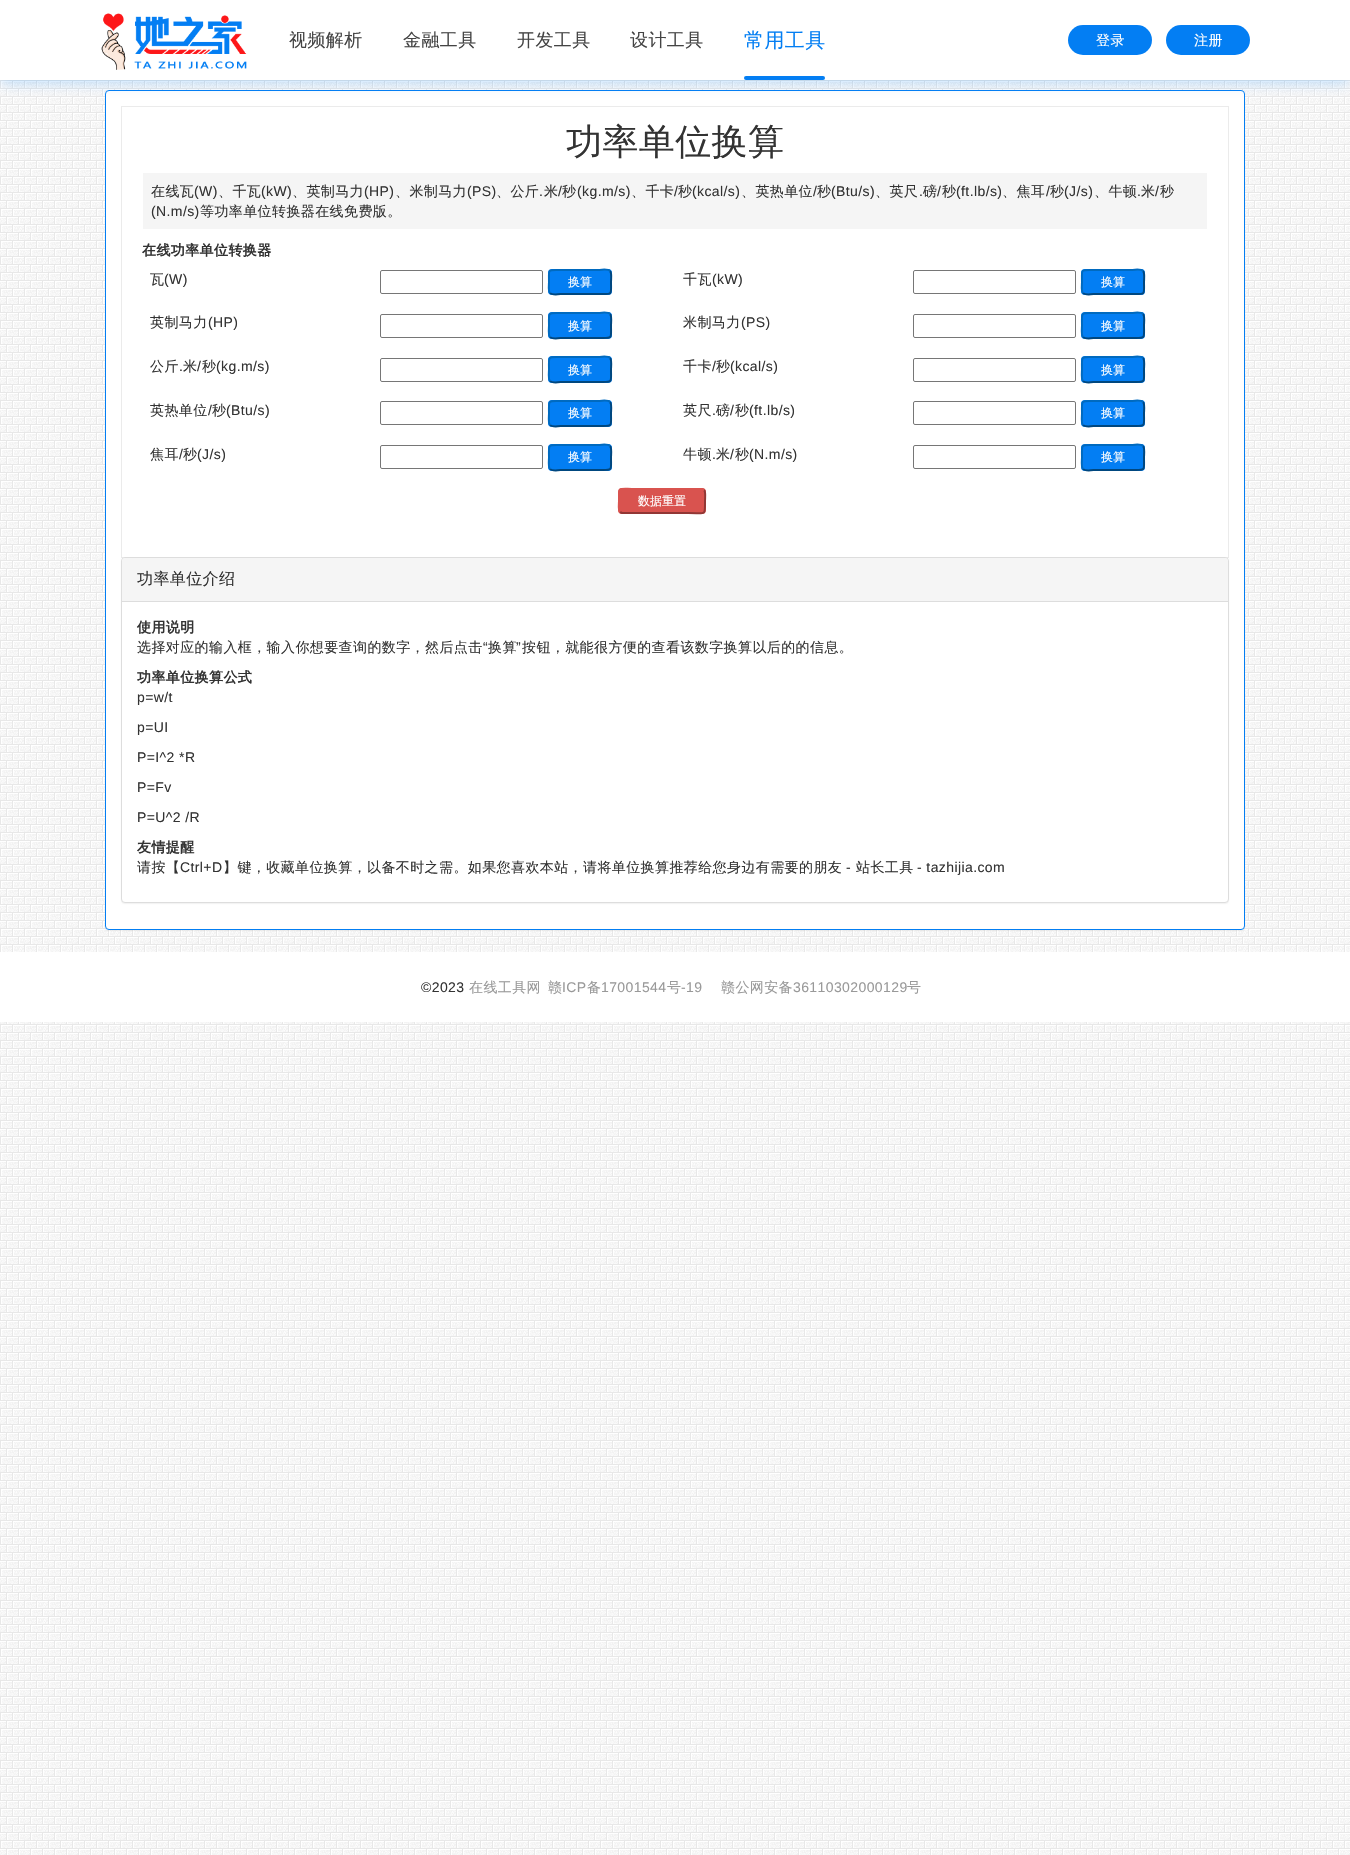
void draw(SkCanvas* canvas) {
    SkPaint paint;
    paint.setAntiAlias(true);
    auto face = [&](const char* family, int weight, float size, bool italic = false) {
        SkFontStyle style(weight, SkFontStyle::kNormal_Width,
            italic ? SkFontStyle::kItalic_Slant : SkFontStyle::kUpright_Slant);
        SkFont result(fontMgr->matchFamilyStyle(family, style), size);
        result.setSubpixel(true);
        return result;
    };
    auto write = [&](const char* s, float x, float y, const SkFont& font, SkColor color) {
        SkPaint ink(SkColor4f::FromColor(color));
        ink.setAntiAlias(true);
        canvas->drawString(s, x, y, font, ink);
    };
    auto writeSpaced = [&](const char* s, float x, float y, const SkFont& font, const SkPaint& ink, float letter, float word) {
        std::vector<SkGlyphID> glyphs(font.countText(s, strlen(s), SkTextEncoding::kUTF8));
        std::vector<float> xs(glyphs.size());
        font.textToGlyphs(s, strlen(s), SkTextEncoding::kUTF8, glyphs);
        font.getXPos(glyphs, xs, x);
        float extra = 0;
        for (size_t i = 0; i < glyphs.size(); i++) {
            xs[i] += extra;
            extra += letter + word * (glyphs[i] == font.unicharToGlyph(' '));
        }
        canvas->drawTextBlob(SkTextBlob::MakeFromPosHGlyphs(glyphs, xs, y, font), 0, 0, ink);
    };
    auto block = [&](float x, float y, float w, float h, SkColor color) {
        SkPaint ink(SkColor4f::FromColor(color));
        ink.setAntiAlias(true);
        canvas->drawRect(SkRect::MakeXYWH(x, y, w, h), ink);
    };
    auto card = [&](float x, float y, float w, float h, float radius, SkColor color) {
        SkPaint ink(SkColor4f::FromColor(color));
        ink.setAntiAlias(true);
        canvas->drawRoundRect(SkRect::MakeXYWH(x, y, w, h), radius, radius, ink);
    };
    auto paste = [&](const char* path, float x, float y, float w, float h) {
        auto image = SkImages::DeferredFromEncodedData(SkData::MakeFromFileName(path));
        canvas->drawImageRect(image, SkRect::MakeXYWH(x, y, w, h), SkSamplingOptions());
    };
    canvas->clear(SK_ColorWHITE);
    paste("pic1.png", 0, 80, 1350, 1775);
    paint.setColor(SkColorSetARGB(13, 0, 0, 0));
    paint.setMaskFilter(SkMaskFilter::MakeBlur(kNormal_SkBlurStyle, 0.5f));
    canvas->drawRoundRect(SkRect::MakeXYWH(105, 91, 1140, 840), 4, 4, paint);
    paint.setMaskFilter(nullptr);
    paint.setColor(SK_ColorWHITE);
    canvas->drawRoundRect(SkRect::MakeXYWH(105.5f, 90.5f, 1139, 839), 3.5f, 3.5f, paint);
    paint.setStyle(SkPaint::kStroke_Style);
    paint.setStrokeWidth(1);
    paint.setColor(SkColorSetRGB(3, 126, 243));
    canvas->drawRoundRect(SkRect::MakeXYWH(105.5f, 90.5f, 1139, 839), 3.5f, 3.5f, paint);
    paint.setStyle(SkPaint::kFill_Style);
    paint.setColor(SkColorSetARGB(64, 3, 126, 243));
    paint.setMaskFilter(SkMaskFilter::MakeBlur(kNormal_SkBlurStyle, 7));
    canvas->drawRect(SkRect::MakeXYWH(0, 3, 1350, 80), paint);
    paint.setMaskFilter(nullptr);
    block(0, 0, 1350, 80, SK_ColorWHITE);
    paste("pic2.png", 101, 13, 146, 57);
    auto kFont1 = face("WenQuanYi Zen Hei", 500, 18);
    paint.setColor(SkColorSetRGB(68, 68, 68));
    writeSpaced("视频解析", 289, 46, kFont1, paint, 0.4f, 0);
    writeSpaced("金融工具", 403, 46, kFont1, paint, 0.4f, 0);
    writeSpaced("开发工具", 517, 46, kFont1, paint, 0.4f, 0);
    writeSpaced("设计工具", 630, 46, kFont1, paint, 0.4f, 0);
    auto kFont2 = face("WenQuanYi Zen Hei", 500, 20);
    paint.setColor(SkColorSetRGB(3, 126, 243));
    writeSpaced("常用工具", 744, 47, kFont2, paint, 0.4f, 0);
    card(744, 76, 81, 4, 2, SkColorSetRGB(3, 126, 243));
    card(1068, 25, 84, 30, 15, SkColorSetRGB(3, 126, 243));
    auto kFont3 = face("WenQuanYi Zen Hei", 500, 14);
    paint.setColor(SK_ColorWHITE);
    writeSpaced("登录", 1096, 45, kFont3, paint, 0.4f, 0);
    card(1166, 25, 84, 30, 15, SkColorSetRGB(3, 126, 243));
    writeSpaced("注册", 1194, 45, kFont3, paint, 0.4f, 0);
    paint.setStyle(SkPaint::kStroke_Style);
    paint.setColor(SkColorSetRGB(235, 235, 235));
    canvas->drawRect(SkRect::MakeXYWH(121.5f, 106.5f, 1107, 451), paint);
    auto kFont4 = face("WenQuanYi Zen Hei", 500, 36);
    paint.setStyle(SkPaint::kFill_Style);
    paint.setColor(SkColorSetRGB(51, 51, 51));
    writeSpaced("功率单位换算", 566, 154, kFont4, paint, 0.4f, 0);
    block(143, 173, 1064, 56, SkColorSetRGB(245, 245, 245));
    writeSpaced("在线瓦", 151, 196, kFont3, paint, 0.4f, 0);
    auto kFont5 = face("Liberation Sans", 400, 14);
    writeSpaced("(W)", 194, 196, kFont5, paint, 0.4f, 0);
    writeSpaced("、千瓦", 218, 196, kFont3, paint, 0.4f, 0);
    writeSpaced("(kW)", 261, 196, kFont5, paint, 0.4f, 0);
    writeSpaced("、英制马力", 292, 196, kFont3, paint, 0.4f, 0);
    writeSpaced("(HP)", 364, 196, kFont5, paint, 0.4f, 0);
    writeSpaced("、米制马力", 395, 196, kFont3, paint, 0.4f, 0);
    writeSpaced("(PS)", 467, 196, kFont5, paint, 0.4f, 0);
    writeSpaced("、公斤", 496, 196, kFont3, paint, 0.4f, 0);
    writeSpaced(".", 539, 196, kFont5, paint, 0.4f, 0);
    writeSpaced("米", 544, 196, kFont3, paint, 0.4f, 0);
    writeSpaced("/", 558, 196, kFont5, paint, 0.4f, 0);
    writeSpaced("秒", 562, 196, kFont3, paint, 0.4f, 0);
    writeSpaced("(kg.m/s)", 577, 196, kFont5, paint, 0.4f, 0);
    writeSpaced("、千卡", 631, 196, kFont3, paint, 0.4f, 0);
    writeSpaced("/", 674, 196, kFont5, paint, 0.4f, 0);
    writeSpaced("秒", 678, 196, kFont3, paint, 0.4f, 0);
    writeSpaced("(kcal/s)", 692, 196, kFont5, paint, 0.4f, 0);
    writeSpaced("、英热单位", 741, 196, kFont3, paint, 0.4f, 0);
    writeSpaced("/", 813, 196, kFont5, paint, 0.4f, 0);
    writeSpaced("秒", 817, 196, kFont3, paint, 0.4f, 0);
    writeSpaced("(Btu/s)", 831, 196, kFont5, paint, 0.4f, 0);
    writeSpaced("、英尺", 875, 196, kFont3, paint, 0.4f, 0);
    writeSpaced(".", 919, 196, kFont5, paint, 0.4f, 0);
    writeSpaced("磅", 923, 196, kFont3, paint, 0.4f, 0);
    writeSpaced("/", 937, 196, kFont5, paint, 0.4f, 0);
    writeSpaced("秒", 942, 196, kFont3, paint, 0.4f, 0);
    writeSpaced("(ft.lb/s)", 956, 196, kFont5, paint, 0.4f, 0);
    writeSpaced("、焦耳", 1002, 196, kFont3, paint, 0.4f, 0);
    writeSpaced("/", 1046, 196, kFont5, paint, 0.4f, 0);
    writeSpaced("秒", 1050, 196, kFont3, paint, 0.4f, 0);
    writeSpaced("(J/s)", 1064, 196, kFont5, paint, 0.4f, 0);
    writeSpaced("、牛顿", 1094, 196, kFont3, paint, 0.4f, 0);
    writeSpaced(".", 1137, 196, kFont5, paint, 0.4f, 0);
    writeSpaced("米", 1141, 196, kFont3, paint, 0.4f, 0);
    writeSpaced("/", 1155, 196, kFont5, paint, 0.4f, 0);
    writeSpaced("秒", 1160, 196, kFont3, paint, 0.4f, 0);
    writeSpaced("(N.m/s)", 151, 216, kFont5, paint, 0.4f, 0);
    writeSpaced("等功率单位转换器在线免费版。", 200, 216, kFont3, paint, 0.4f, 0);
    auto kFont6 = face("WenQuanYi Zen Hei", 700, 14);
    writeSpaced("在线功率单位转换器", 142, 255, kFont6, paint, 0.4f, 0);
    writeSpaced("瓦", 150, 284, kFont3, paint, 0.4f, 0);
    writeSpaced("(W)", 164, 284, kFont5, paint, 0.4f, 0);
    paint.setStyle(SkPaint::kStroke_Style);
    paint.setColor(SkColorSetRGB(118, 118, 118));
    canvas->drawRoundRect(SkRect::MakeXYWH(380.5f, 270.5f, 162, 23), 1.5f, 1.5f, paint);
    card(548, 269, 64, 26, 4, SkColorSetRGB(3, 126, 243));
    paint.setStrokeWidth(2);
    paint.setColor(SkColorSetRGB(0, 71, 127));
    canvas->drawPath(SkPathBuilder().moveTo(610, 271).cubicTo(612, 273, 611, 279.5f, 611, 282).cubicTo(611, 295.5f, 613, 294, 598.5f, 294).lineTo(561.5f, 294).cubicTo(560.5f, 294, 552, 295.5f, 550, 293).detach(), paint);
    paint.setColor(SkColorSetRGB(0, 106, 191));
    canvas->drawPath(SkPathBuilder().moveTo(550, 293).cubicTo(548, 291, 549, 284.5f, 549, 282).cubicTo(549, 268.5f, 547, 270, 561.5f, 270).lineTo(598.5f, 270).cubicTo(599.5f, 270, 608, 268.5f, 610, 271).detach(), paint);
    auto kFont7 = face("WenQuanYi Zen Hei", 500, 12);
    write("换算", 568, 286, kFont7, SK_ColorWHITE);
    paint.setStyle(SkPaint::kFill_Style);
    paint.setColor(SkColorSetRGB(51, 51, 51));
    writeSpaced("千瓦", 683, 284, kFont3, paint, 0.4f, 0);
    writeSpaced("(kW)", 712, 284, kFont5, paint, 0.4f, 0);
    paint.setStyle(SkPaint::kStroke_Style);
    paint.setStrokeWidth(1);
    paint.setColor(SkColorSetRGB(118, 118, 118));
    canvas->drawRoundRect(SkRect::MakeXYWH(913.5f, 270.5f, 162, 23), 1.5f, 1.5f, paint);
    card(1081, 269, 64, 26, 4, SkColorSetRGB(3, 126, 243));
    paint.setStrokeWidth(2);
    paint.setColor(SkColorSetRGB(0, 71, 127));
    canvas->drawPath(SkPathBuilder().moveTo(1143, 271).cubicTo(1145, 273, 1144, 279.5f, 1144, 282).cubicTo(1144, 295.5f, 1146, 294, 1131.5f, 294).lineTo(1094.5f, 294).cubicTo(1093.5f, 294, 1085, 295.5f, 1083, 293).detach(), paint);
    paint.setColor(SkColorSetRGB(0, 106, 191));
    canvas->drawPath(SkPathBuilder().moveTo(1083, 293).cubicTo(1081, 291, 1082, 284.5f, 1082, 282).cubicTo(1082, 268.5f, 1080, 270, 1094.5f, 270).lineTo(1131.5f, 270).cubicTo(1132.5f, 270, 1141, 268.5f, 1143, 271).detach(), paint);
    write("换算", 1101, 286, kFont7, SK_ColorWHITE);
    paint.setStyle(SkPaint::kFill_Style);
    paint.setColor(SkColorSetRGB(51, 51, 51));
    writeSpaced("英制马力", 150, 327, kFont3, paint, 0.4f, 0);
    writeSpaced("(HP)", 208, 327, kFont5, paint, 0.4f, 0);
    paint.setStyle(SkPaint::kStroke_Style);
    paint.setStrokeWidth(1);
    paint.setColor(SkColorSetRGB(118, 118, 118));
    canvas->drawRoundRect(SkRect::MakeXYWH(380.5f, 314.5f, 162, 23), 1.5f, 1.5f, paint);
    card(548, 312, 64, 27, 4, SkColorSetRGB(3, 126, 243));
    paint.setStrokeWidth(2);
    paint.setColor(SkColorSetRGB(0, 71, 127));
    canvas->drawPath(SkPathBuilder().moveTo(610, 314).cubicTo(612, 316, 611, 323, 611, 325.5f).cubicTo(611, 339.5f, 613, 338, 598.5f, 338).lineTo(561.5f, 338).cubicTo(560.5f, 338, 552, 339.5f, 550, 337).detach(), paint);
    paint.setColor(SkColorSetRGB(0, 106, 191));
    canvas->drawPath(SkPathBuilder().moveTo(550, 337).cubicTo(548, 335, 549, 328, 549, 325.5f).cubicTo(549, 311.5f, 547, 313, 561.5f, 313).lineTo(598.5f, 313).cubicTo(599.5f, 313, 608, 311.5f, 610, 314).detach(), paint);
    write("换算", 568, 330, kFont7, SK_ColorWHITE);
    paint.setStyle(SkPaint::kFill_Style);
    paint.setColor(SkColorSetRGB(51, 51, 51));
    writeSpaced("米制马力", 683, 327, kFont3, paint, 0.4f, 0);
    writeSpaced("(PS)", 741, 327, kFont5, paint, 0.4f, 0);
    paint.setStyle(SkPaint::kStroke_Style);
    paint.setStrokeWidth(1);
    paint.setColor(SkColorSetRGB(118, 118, 118));
    canvas->drawRoundRect(SkRect::MakeXYWH(913.5f, 314.5f, 162, 23), 1.5f, 1.5f, paint);
    card(1081, 312, 64, 27, 4, SkColorSetRGB(3, 126, 243));
    paint.setStrokeWidth(2);
    paint.setColor(SkColorSetRGB(0, 71, 127));
    canvas->drawPath(SkPathBuilder().moveTo(1143, 314).cubicTo(1145, 316, 1144, 323, 1144, 325.5f).cubicTo(1144, 339.5f, 1146, 338, 1131.5f, 338).lineTo(1094.5f, 338).cubicTo(1093.5f, 338, 1085, 339.5f, 1083, 337).detach(), paint);
    paint.setColor(SkColorSetRGB(0, 106, 191));
    canvas->drawPath(SkPathBuilder().moveTo(1083, 337).cubicTo(1081, 335, 1082, 328, 1082, 325.5f).cubicTo(1082, 311.5f, 1080, 313, 1094.5f, 313).lineTo(1131.5f, 313).cubicTo(1132.5f, 313, 1141, 311.5f, 1143, 314).detach(), paint);
    write("换算", 1101, 330, kFont7, SK_ColorWHITE);
    paint.setStyle(SkPaint::kFill_Style);
    paint.setColor(SkColorSetRGB(51, 51, 51));
    writeSpaced("公斤", 150, 371, kFont3, paint, 0.4f, 0);
    writeSpaced(".", 179, 371, kFont5, paint, 0.4f, 0);
    writeSpaced("米", 183, 371, kFont3, paint, 0.4f, 0);
    writeSpaced("/", 197, 371, kFont5, paint, 0.4f, 0);
    writeSpaced("秒", 202, 371, kFont3, paint, 0.4f, 0);
    writeSpaced("(kg.m/s)", 216, 371, kFont5, paint, 0.4f, 0);
    paint.setStyle(SkPaint::kStroke_Style);
    paint.setStrokeWidth(1);
    paint.setColor(SkColorSetRGB(118, 118, 118));
    canvas->drawRoundRect(SkRect::MakeXYWH(380.5f, 358.5f, 162, 23), 1.5f, 1.5f, paint);
    card(548, 356, 64, 27, 4, SkColorSetRGB(3, 126, 243));
    paint.setStrokeWidth(2);
    paint.setColor(SkColorSetRGB(0, 71, 127));
    canvas->drawPath(SkPathBuilder().moveTo(610, 358).cubicTo(612, 360, 611, 367, 611, 369.5f).cubicTo(611, 383.5f, 613, 382, 598.5f, 382).lineTo(561.5f, 382).cubicTo(560.5f, 382, 552, 383.5f, 550, 381).detach(), paint);
    paint.setColor(SkColorSetRGB(0, 106, 191));
    canvas->drawPath(SkPathBuilder().moveTo(550, 381).cubicTo(548, 379, 549, 372, 549, 369.5f).cubicTo(549, 355.5f, 547, 357, 561.5f, 357).lineTo(598.5f, 357).cubicTo(599.5f, 357, 608, 355.5f, 610, 358).detach(), paint);
    write("换算", 568, 374, kFont7, SK_ColorWHITE);
    paint.setStyle(SkPaint::kFill_Style);
    paint.setColor(SkColorSetRGB(51, 51, 51));
    writeSpaced("千卡", 683, 371, kFont3, paint, 0.4f, 0);
    writeSpaced("/", 712, 371, kFont5, paint, 0.4f, 0);
    writeSpaced("秒", 716, 371, kFont3, paint, 0.4f, 0);
    writeSpaced("(kcal/s)", 730, 371, kFont5, paint, 0.4f, 0);
    paint.setStyle(SkPaint::kStroke_Style);
    paint.setStrokeWidth(1);
    paint.setColor(SkColorSetRGB(118, 118, 118));
    canvas->drawRoundRect(SkRect::MakeXYWH(913.5f, 358.5f, 162, 23), 1.5f, 1.5f, paint);
    card(1081, 356, 64, 27, 4, SkColorSetRGB(3, 126, 243));
    paint.setStrokeWidth(2);
    paint.setColor(SkColorSetRGB(0, 71, 127));
    canvas->drawPath(SkPathBuilder().moveTo(1143, 358).cubicTo(1145, 360, 1144, 367, 1144, 369.5f).cubicTo(1144, 383.5f, 1146, 382, 1131.5f, 382).lineTo(1094.5f, 382).cubicTo(1093.5f, 382, 1085, 383.5f, 1083, 381).detach(), paint);
    paint.setColor(SkColorSetRGB(0, 106, 191));
    canvas->drawPath(SkPathBuilder().moveTo(1083, 381).cubicTo(1081, 379, 1082, 372, 1082, 369.5f).cubicTo(1082, 355.5f, 1080, 357, 1094.5f, 357).lineTo(1131.5f, 357).cubicTo(1132.5f, 357, 1141, 355.5f, 1143, 358).detach(), paint);
    write("换算", 1101, 374, kFont7, SK_ColorWHITE);
    paint.setStyle(SkPaint::kFill_Style);
    paint.setColor(SkColorSetRGB(51, 51, 51));
    writeSpaced("英热单位", 150, 415, kFont3, paint, 0.4f, 0);
    writeSpaced("/", 208, 415, kFont5, paint, 0.4f, 0);
    writeSpaced("秒", 212, 415, kFont3, paint, 0.4f, 0);
    writeSpaced("(Btu/s)", 226, 415, kFont5, paint, 0.4f, 0);
    paint.setStyle(SkPaint::kStroke_Style);
    paint.setStrokeWidth(1);
    paint.setColor(SkColorSetRGB(118, 118, 118));
    canvas->drawRoundRect(SkRect::MakeXYWH(380.5f, 401.5f, 162, 23), 1.5f, 1.5f, paint);
    card(548, 400, 64, 27, 4, SkColorSetRGB(3, 126, 243));
    paint.setStrokeWidth(2);
    paint.setColor(SkColorSetRGB(0, 71, 127));
    canvas->drawPath(SkPathBuilder().moveTo(610, 402).cubicTo(612, 404, 611, 411, 611, 413.5f).cubicTo(611, 427.5f, 613, 426, 598.5f, 426).lineTo(561.5f, 426).cubicTo(560.5f, 426, 552, 427.5f, 550, 425).detach(), paint);
    paint.setColor(SkColorSetRGB(0, 106, 191));
    canvas->drawPath(SkPathBuilder().moveTo(550, 425).cubicTo(548, 423, 549, 416, 549, 413.5f).cubicTo(549, 399.5f, 547, 401, 561.5f, 401).lineTo(598.5f, 401).cubicTo(599.5f, 401, 608, 399.5f, 610, 402).detach(), paint);
    write("换算", 568, 417, kFont7, SK_ColorWHITE);
    paint.setStyle(SkPaint::kFill_Style);
    paint.setColor(SkColorSetRGB(51, 51, 51));
    writeSpaced("英尺", 683, 415, kFont3, paint, 0.4f, 0);
    writeSpaced(".", 712, 415, kFont5, paint, 0.4f, 0);
    writeSpaced("磅", 716, 415, kFont3, paint, 0.4f, 0);
    writeSpaced("/", 730, 415, kFont5, paint, 0.4f, 0);
    writeSpaced("秒", 735, 415, kFont3, paint, 0.4f, 0);
    writeSpaced("(ft.lb/s)", 749, 415, kFont5, paint, 0.4f, 0);
    paint.setStyle(SkPaint::kStroke_Style);
    paint.setStrokeWidth(1);
    paint.setColor(SkColorSetRGB(118, 118, 118));
    canvas->drawRoundRect(SkRect::MakeXYWH(913.5f, 401.5f, 162, 23), 1.5f, 1.5f, paint);
    card(1081, 400, 64, 27, 4, SkColorSetRGB(3, 126, 243));
    paint.setStrokeWidth(2);
    paint.setColor(SkColorSetRGB(0, 71, 127));
    canvas->drawPath(SkPathBuilder().moveTo(1143, 402).cubicTo(1145, 404, 1144, 411, 1144, 413.5f).cubicTo(1144, 427.5f, 1146, 426, 1131.5f, 426).lineTo(1094.5f, 426).cubicTo(1093.5f, 426, 1085, 427.5f, 1083, 425).detach(), paint);
    paint.setColor(SkColorSetRGB(0, 106, 191));
    canvas->drawPath(SkPathBuilder().moveTo(1083, 425).cubicTo(1081, 423, 1082, 416, 1082, 413.5f).cubicTo(1082, 399.5f, 1080, 401, 1094.5f, 401).lineTo(1131.5f, 401).cubicTo(1132.5f, 401, 1141, 399.5f, 1143, 402).detach(), paint);
    write("换算", 1101, 417, kFont7, SK_ColorWHITE);
    paint.setStyle(SkPaint::kFill_Style);
    paint.setColor(SkColorSetRGB(51, 51, 51));
    writeSpaced("焦耳", 150, 459, kFont3, paint, 0.4f, 0);
    writeSpaced("/", 179, 459, kFont5, paint, 0.4f, 0);
    writeSpaced("秒", 183, 459, kFont3, paint, 0.4f, 0);
    writeSpaced("(J/s)", 197, 459, kFont5, paint, 0.4f, 0);
    paint.setStyle(SkPaint::kStroke_Style);
    paint.setStrokeWidth(1);
    paint.setColor(SkColorSetRGB(118, 118, 118));
    canvas->drawRoundRect(SkRect::MakeXYWH(380.5f, 445.5f, 162, 23), 1.5f, 1.5f, paint);
    card(548, 444, 64, 27, 4, SkColorSetRGB(3, 126, 243));
    paint.setStrokeWidth(2);
    paint.setColor(SkColorSetRGB(0, 71, 127));
    canvas->drawPath(SkPathBuilder().moveTo(610, 446).cubicTo(612, 448, 611, 455, 611, 457.5f).cubicTo(611, 471.5f, 613, 470, 598.5f, 470).lineTo(561.5f, 470).cubicTo(560.5f, 470, 552, 471.5f, 550, 469).detach(), paint);
    paint.setColor(SkColorSetRGB(0, 106, 191));
    canvas->drawPath(SkPathBuilder().moveTo(550, 469).cubicTo(548, 467, 549, 460, 549, 457.5f).cubicTo(549, 443.5f, 547, 445, 561.5f, 445).lineTo(598.5f, 445).cubicTo(599.5f, 445, 608, 443.5f, 610, 446).detach(), paint);
    write("换算", 568, 461, kFont7, SK_ColorWHITE);
    paint.setStyle(SkPaint::kFill_Style);
    paint.setColor(SkColorSetRGB(51, 51, 51));
    writeSpaced("牛顿", 683, 459, kFont3, paint, 0.4f, 0);
    writeSpaced(".", 712, 459, kFont5, paint, 0.4f, 0);
    writeSpaced("米", 716, 459, kFont3, paint, 0.4f, 0);
    writeSpaced("/", 730, 459, kFont5, paint, 0.4f, 0);
    writeSpaced("秒", 735, 459, kFont3, paint, 0.4f, 0);
    writeSpaced("(N.m/s)", 749, 459, kFont5, paint, 0.4f, 0);
    paint.setStyle(SkPaint::kStroke_Style);
    paint.setStrokeWidth(1);
    paint.setColor(SkColorSetRGB(118, 118, 118));
    canvas->drawRoundRect(SkRect::MakeXYWH(913.5f, 445.5f, 162, 23), 1.5f, 1.5f, paint);
    card(1081, 444, 64, 27, 4, SkColorSetRGB(3, 126, 243));
    paint.setStrokeWidth(2);
    paint.setColor(SkColorSetRGB(0, 71, 127));
    canvas->drawPath(SkPathBuilder().moveTo(1143, 446).cubicTo(1145, 448, 1144, 455, 1144, 457.5f).cubicTo(1144, 471.5f, 1146, 470, 1131.5f, 470).lineTo(1094.5f, 470).cubicTo(1093.5f, 470, 1085, 471.5f, 1083, 469).detach(), paint);
    paint.setColor(SkColorSetRGB(0, 106, 191));
    canvas->drawPath(SkPathBuilder().moveTo(1083, 469).cubicTo(1081, 467, 1082, 460, 1082, 457.5f).cubicTo(1082, 443.5f, 1080, 445, 1094.5f, 445).lineTo(1131.5f, 445).cubicTo(1132.5f, 445, 1141, 443.5f, 1143, 446).detach(), paint);
    write("换算", 1101, 461, kFont7, SK_ColorWHITE);
    card(618, 488, 88, 26, 4, SkColorSetRGB(217, 83, 79));
    paint.setColor(SkColorSetRGB(145, 55, 53));
    canvas->drawPath(SkPathBuilder().moveTo(704, 490).cubicTo(706, 492, 705, 498.5f, 705, 501).cubicTo(705, 516.5f, 706, 513, 688.5f, 513).lineTo(622, 513).lineTo(620, 512).detach(), paint);
    paint.setColor(SkColorSetRGB(217, 83, 79));
    canvas->drawPath(SkPathBuilder().moveTo(620, 512).cubicTo(618, 510, 619, 503.5f, 619, 501).cubicTo(619, 485.5f, 618, 489, 635.5f, 489).lineTo(702, 489).lineTo(704, 490).detach(), paint);
    write("数据重置", 638, 505, kFont7, SK_ColorWHITE);
    paint.setStyle(SkPaint::kFill_Style);
    paint.setColor(SkColorSetARGB(13, 0, 0, 0));
    paint.setMaskFilter(SkMaskFilter::MakeBlur(kNormal_SkBlurStyle, 0.5f));
    canvas->drawRoundRect(SkRect::MakeXYWH(121, 558, 1108, 346), 4, 4, paint);
    paint.setMaskFilter(nullptr);
    paint.setColor(SK_ColorWHITE);
    canvas->drawRoundRect(SkRect::MakeXYWH(121.5f, 557.5f, 1107, 345), 3.5f, 3.5f, paint);
    paint.setStyle(SkPaint::kStroke_Style);
    paint.setStrokeWidth(1);
    paint.setColor(SkColorSetRGB(221, 221, 221));
    canvas->drawRoundRect(SkRect::MakeXYWH(121.5f, 557.5f, 1107, 345), 3.5f, 3.5f, paint);
    paint.setStyle(SkPaint::kFill_Style);
    paint.setColor(SkColorSetRGB(245, 245, 245));
    canvas->drawPath(SkPathBuilder().moveTo(125, 558).lineTo(1225, 558).cubicTo(1226.5f, 558, 1228, 559.5f, 1228, 561).lineTo(1228, 602).lineTo(122, 602).lineTo(122, 561).cubicTo(122, 559.5f, 123.5f, 558, 125, 558).close().detach(), paint);
    block(122, 601, 1106, 1, SkColorSetRGB(221, 221, 221));
    auto kFont8 = face("WenQuanYi Zen Hei", 500, 16);
    paint.setColor(SkColorSetRGB(51, 51, 51));
    writeSpaced("功率单位介绍", 137, 584, kFont8, paint, 0.4f, 0);
    writeSpaced("使用说明", 137, 632, kFont6, paint, 0.4f, 0);
    writeSpaced("选择对应的输入框，输入你想要查询的数字，然后点击", 137, 652, kFont3, paint, 0.4f, 0);
    writeSpaced("“", 483, 652, kFont5, paint, 0.4f, 0);
    writeSpaced("换算", 488, 652, kFont3, paint, 0.4f, 0);
    writeSpaced("”", 516, 652, kFont5, paint, 0.4f, 0);
    writeSpaced("按钮，就能很方便的查看该数字换算以后的的信息。", 522, 652, kFont3, paint, 0.4f, 0);
    writeSpaced("功率单位换算公式", 137, 682, kFont6, paint, 0.4f, 0);
    writeSpaced("p=w/t", 137, 702, kFont5, paint, 0.4f, 0);
    writeSpaced("p=UI", 137, 732, kFont5, paint, 0.4f, 0);
    writeSpaced("P=I^2 *R", 137, 762, kFont5, paint, 0.4f, 0);
    writeSpaced("P=Fv", 137, 792, kFont5, paint, 0.4f, 0);
    writeSpaced("P=U^2 /R", 137, 822, kFont5, paint, 0.4f, 0);
    writeSpaced("友情提醒", 137, 852, kFont6, paint, 0.4f, 0);
    writeSpaced("请按【", 137, 872, kFont3, paint, 0.4f, 0);
    writeSpaced("Ctrl+D", 180, 872, kFont5, paint, 0.4f, 0);
    writeSpaced("】键，收藏单位换算，以备不时之需。如果您喜欢本站，请将单位换算推荐给您身边有需要的朋友", 223, 872, kFont3, paint, 0.4f, 0);
    writeSpaced("-", 846, 872, kFont5, paint, 0.4f, 0);
    writeSpaced("站长工具", 856, 872, kFont3, paint, 0.4f, 0);
    writeSpaced("- tazhijia.com", 917, 872, kFont5, paint, 0.4f, 0);
    block(0, 952, 1350, 70, SK_ColorWHITE);
    writeSpaced("©2023", 421, 992, kFont5, paint, 0.4f, 0);
    paint.setColor(SkColorSetRGB(153, 153, 153));
    writeSpaced("在线工具网", 469, 992, kFont3, paint, 0.4f, 0);
    writeSpaced("赣", 548, 992, kFont3, paint, 0.4f, 0);
    writeSpaced("ICP", 562, 992, kFont5, paint, 0.4f, 0);
    writeSpaced("备", 587, 992, kFont3, paint, 0.4f, 0);
    writeSpaced("17001544", 601, 992, kFont5, paint, 0.4f, 0);
    writeSpaced("号", 667, 992, kFont3, paint, 0.4f, 0);
    writeSpaced("-19", 681, 992, kFont5, paint, 0.4f, 0);
    writeSpaced("赣公网安备", 721, 992, kFont3, paint, 0.4f, 0);
    writeSpaced("36110302000129", 793, 992, kFont5, paint, 0.4f, 0);
    writeSpaced("号", 907, 992, kFont3, paint, 0.4f, 0);
}
